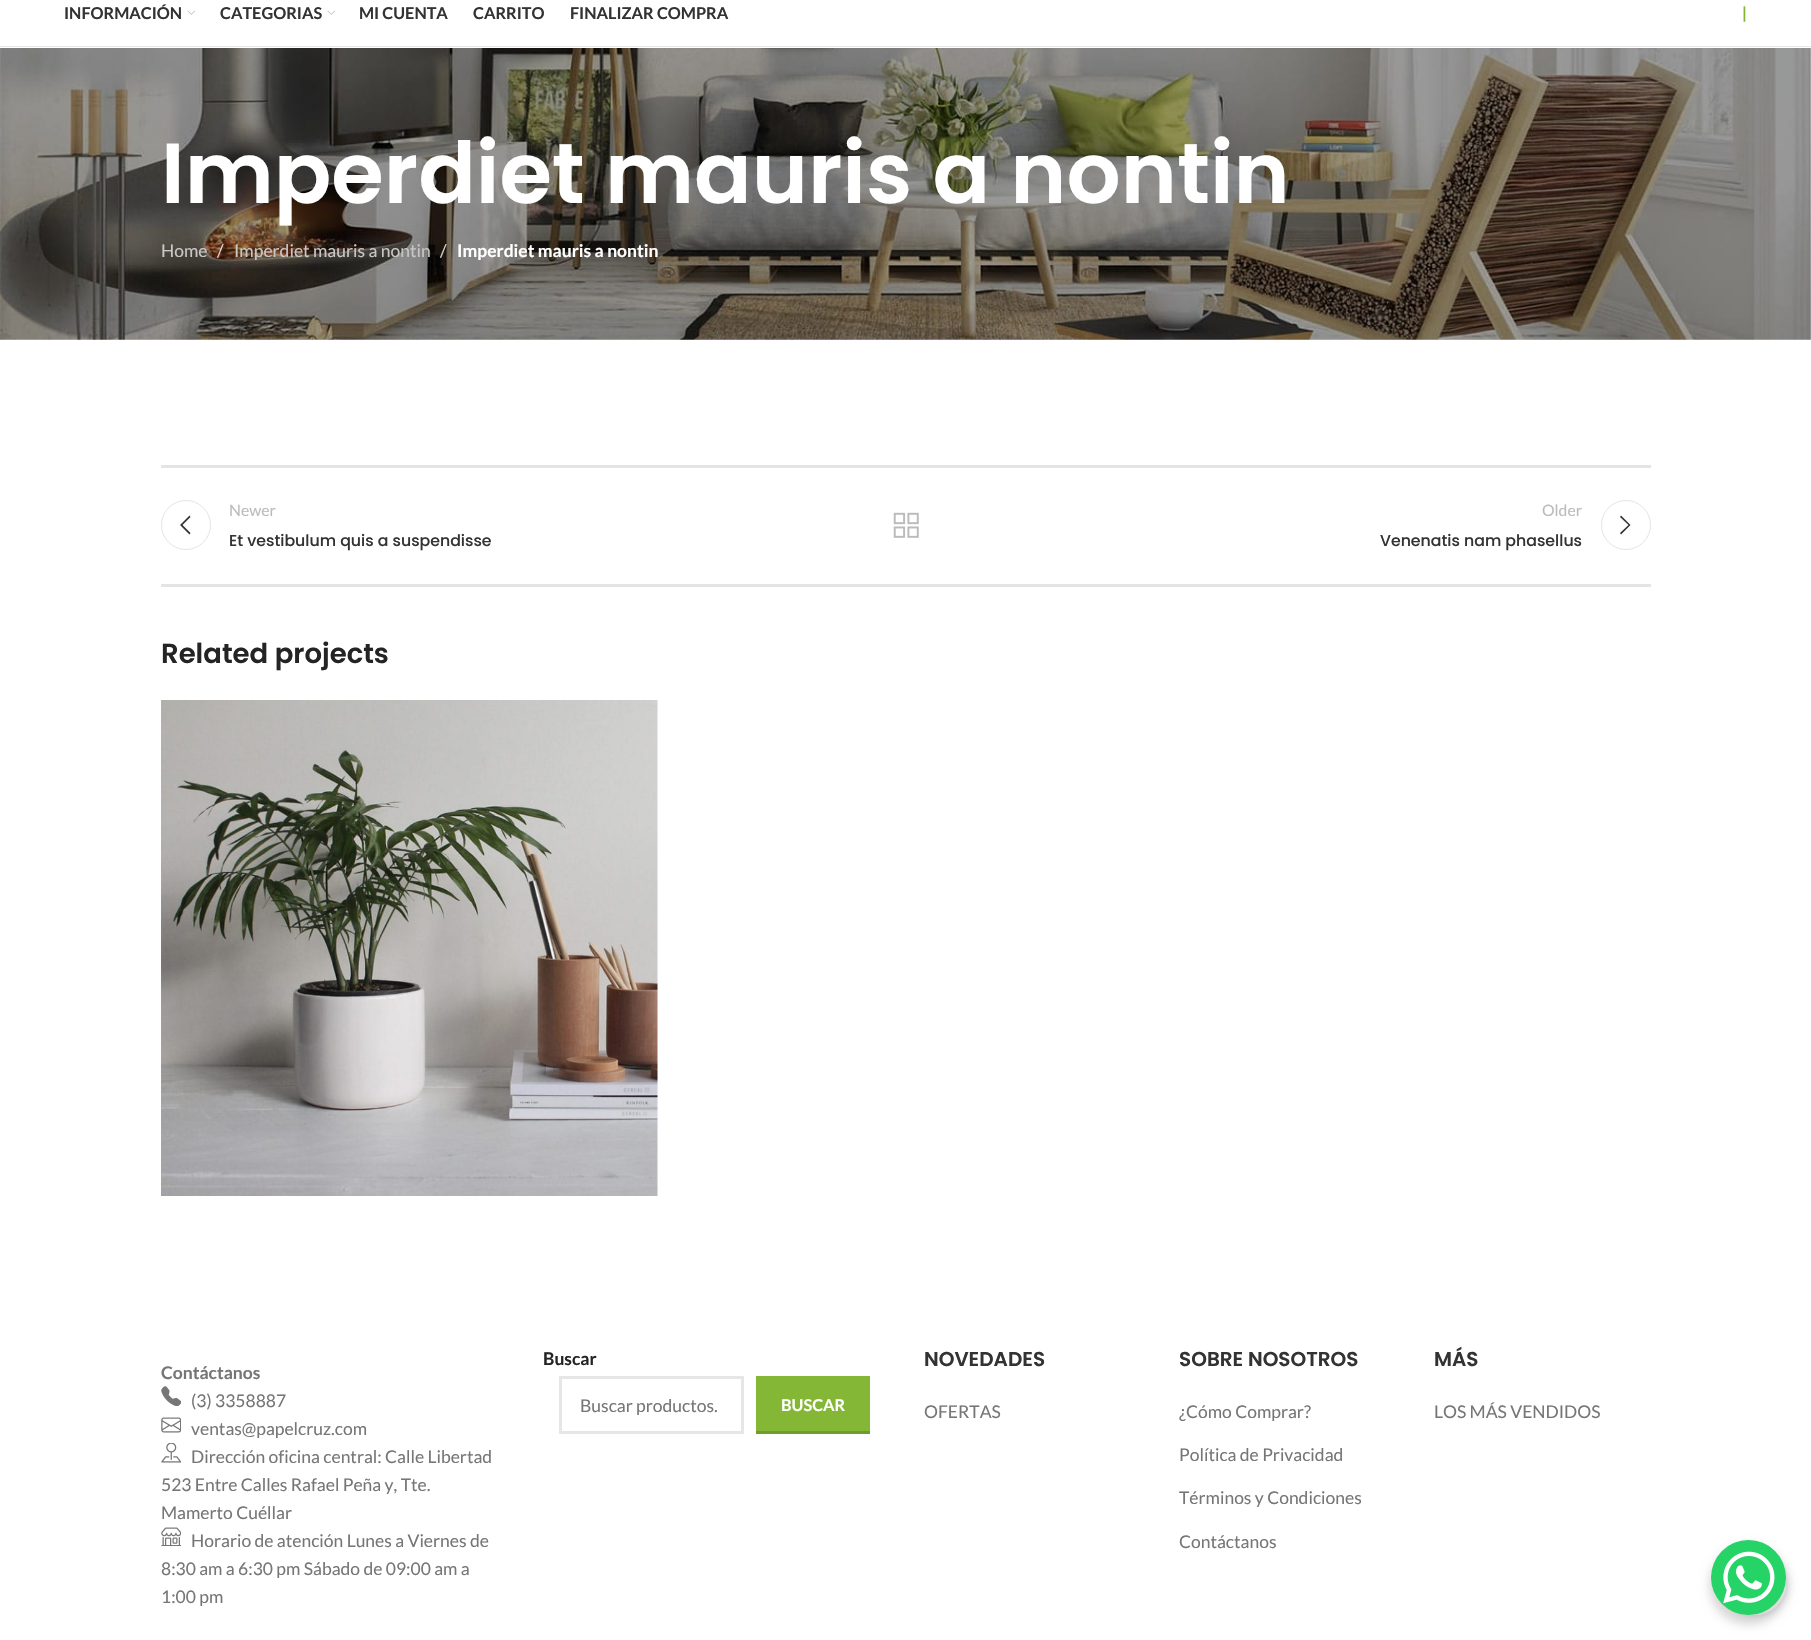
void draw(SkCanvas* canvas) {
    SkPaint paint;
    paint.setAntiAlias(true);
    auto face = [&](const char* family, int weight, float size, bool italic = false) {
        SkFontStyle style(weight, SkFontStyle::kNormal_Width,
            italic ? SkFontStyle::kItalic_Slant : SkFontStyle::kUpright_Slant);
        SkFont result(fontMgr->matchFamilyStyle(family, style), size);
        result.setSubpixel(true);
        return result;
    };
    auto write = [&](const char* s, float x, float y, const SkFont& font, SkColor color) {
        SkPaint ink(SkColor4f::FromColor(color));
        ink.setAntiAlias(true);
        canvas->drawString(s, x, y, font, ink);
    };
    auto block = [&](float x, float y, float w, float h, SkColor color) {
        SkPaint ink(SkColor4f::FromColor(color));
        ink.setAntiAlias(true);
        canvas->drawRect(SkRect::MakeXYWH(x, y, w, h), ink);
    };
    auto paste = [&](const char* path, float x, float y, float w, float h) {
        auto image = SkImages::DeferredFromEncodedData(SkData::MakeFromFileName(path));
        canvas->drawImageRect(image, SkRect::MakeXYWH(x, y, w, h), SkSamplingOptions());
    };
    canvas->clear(SK_ColorWHITE);
    block(0, 46, 1811, 1, SkColorSetRGB(232, 232, 232));
    auto kFont1 = face("Lato", 700, 16.25f);
    write("INFORMACIÓN", 64, 19, kFont1, SkColorSetRGB(51, 51, 51));
    paste("pic1.png", 187, 10, 8, 5);
    write("CATEGORIAS", 220, 19, kFont1, SkColorSetRGB(51, 51, 51));
    paste("pic1.png", 327, 10, 8, 5);
    write("MI CUENTA", 359, 19, kFont1, SkColorSetRGB(51, 51, 51));
    write("CARRITO", 473, 19, kFont1, SkColorSetRGB(51, 51, 51));
    write("FINALIZAR COMPRA", 570, 19, kFont1, SkColorSetRGB(51, 51, 51));
    write("|", 1742, 19, kFont1, SkColorSetRGB(131, 183, 53));
    paste("pic2.png", 0, 48, 1811, 292);
    auto kFont2 = face("Poppins", 600, 85);
    write("Imperdiet mauris a nontin", 161, 203, kFont2, SK_ColorWHITE);
    auto kFont3 = face("Lato", 400, 17.5f);
    write("Home", 161, 257, kFont3, SkColorSetRGB(201, 199, 197));
    write("/", 217, 257, kFont3, SkColorSetRGB(222, 213, 209));
    write("Imperdiet mauris a nontin", 234, 257, kFont3, SkColorSetRGB(201, 199, 197));
    write("/", 440, 257, kFont3, SkColorSetRGB(210, 209, 207));
    auto kFont4 = face("Lato", 700, 17.5f);
    write("Imperdiet mauris a nontin", 457, 257, kFont4, SK_ColorWHITE);
    block(161, 465, 1490, 3, SkColorSetRGB(228, 228, 228));
    block(161, 584, 1490, 3, SkColorSetRGB(228, 228, 228));
    paint.setStyle(SkPaint::kStroke_Style);
    paint.setStrokeWidth(1);
    paint.setColor(SkColorSetRGB(228, 228, 228));
    canvas->drawCircle(186, 525, 24.5f, paint);
    paint.setStyle(SkPaint::kFill_Style);
    paint.setColor(SkColorSetRGB(51, 51, 51));
    canvas->drawPath(SkPathBuilder().moveTo(190.5f, 517).lineTo(189.5f, 515.5f).lineTo(180, 525).lineTo(189.5f, 534.5f).lineTo(190.5f, 533).lineTo(182.5f, 525).close().detach(), paint);
    auto kFont5 = face("Lato", 400, 15.75f);
    write("Newer", 229, 516, kFont5, SkColorSetRGB(187, 187, 187));
    auto kFont6 = face("Poppins", 500, 15.75f);
    write("Et vestibulum quis a suspendisse", 229, 546, kFont6, SkColorSetRGB(51, 51, 51));
    paste("pic3.png", 893, 512, 26, 26);
    write("Older", 1542, 516, kFont5, SkColorSetRGB(187, 187, 187));
    paint.setStyle(SkPaint::kStroke_Style);
    paint.setColor(SkColorSetRGB(228, 228, 228));
    canvas->drawCircle(1626, 525, 24.5f, paint);
    paint.setStyle(SkPaint::kFill_Style);
    paint.setColor(SkColorSetRGB(51, 51, 51));
    canvas->drawPath(SkPathBuilder().moveTo(1620, 517).lineTo(1628.5f, 525).lineTo(1620, 533).lineTo(1621, 534.5f).lineTo(1630.5f, 525).lineTo(1621, 515.5f).close().detach(), paint);
    write("Venenatis nam phasellus", 1380, 546, kFont6, SkColorSetRGB(51, 51, 51));
    auto kFont7 = face("Poppins", 600, 27.5f);
    write("Related projects", 161, 663, kFont7, SkColorSetRGB(36, 36, 36));
    paste("pic4.png", 161, 700, 497, 496);
    write("Contáctanos", 161, 1379, kFont4, SkColorSetRGB(118, 118, 118));
    paste("pic5.png", 161, 1386, 20, 20);
    write("(3) 3358887", 191, 1407, kFont3, SkColorSetRGB(118, 118, 118));
    paste("pic6.png", 161, 1417, 20, 16);
    write("ventas@papelcruz.com", 191, 1435, kFont3, SkColorSetRGB(118, 118, 118));
    paste("pic7.png", 161, 1443, 20, 20);
    write("Dirección oficina central: Calle Libertad", 191, 1463, kFont3, SkColorSetRGB(118, 118, 118));
    write("523 Entre Calles Rafael Peña y, Tte.", 161, 1491, kFont3, SkColorSetRGB(118, 118, 118));
    write("Mamerto Cuéllar", 161, 1519, kFont3, SkColorSetRGB(118, 118, 118));
    paste("pic8.png", 161, 1527, 20, 19);
    write("Horario de atención Lunes a Viernes de", 191, 1547, kFont3, SkColorSetRGB(118, 118, 118));
    write("8:30 am a 6:30 pm Sábado de 09:00 am a", 161, 1575, kFont3, SkColorSetRGB(118, 118, 118));
    write("1:00 pm", 161, 1603, kFont3, SkColorSetRGB(118, 118, 118));
    write("Buscar", 543, 1365, kFont4, SkColorSetRGB(36, 36, 36));
    paint.setStyle(SkPaint::kStroke_Style);
    paint.setStrokeWidth(3);
    paint.setColor(SkColorSetRGB(230, 230, 230));
    canvas->drawRect(SkRect::MakeXYWH(560.5f, 1377.5f, 182, 55), paint);
    write("Buscar productos.", 580, 1412, kFont3, SkColorSetRGB(118, 118, 118));
    block(756, 1376, 114, 55, SkColorSetRGB(131, 183, 53));
    block(756, 1431, 114, 3, SkColorSetRGB(111, 156, 45));
    write("BUSCAR", 781, 1411, kFont1, SK_ColorWHITE);
    auto kFont8 = face("Poppins", 600, 20);
    write("NOVEDADES", 924, 1366, kFont8, SkColorSetRGB(51, 51, 51));
    write("OFERTAS", 924, 1418, kFont3, SkColorSetRGB(118, 118, 118));
    write("SOBRE NOSOTROS", 1179, 1366, kFont8, SkColorSetRGB(51, 51, 51));
    write("¿Cómo Comprar?", 1179, 1418, kFont3, SkColorSetRGB(118, 118, 118));
    write("Política de Privacidad", 1179, 1461, kFont3, SkColorSetRGB(118, 118, 118));
    write("Términos y Condiciones", 1179, 1504, kFont3, SkColorSetRGB(118, 118, 118));
    write("Contáctanos", 1179, 1548, kFont3, SkColorSetRGB(118, 118, 118));
    write("MÁS", 1434, 1366, kFont8, SkColorSetRGB(51, 51, 51));
    write("LOS MÁS VENDIDOS", 1434, 1418, kFont3, SkColorSetRGB(118, 118, 118));
    canvas->save();
    canvas->clipPath(SkPathBuilder(SkPathFillType::kEvenOdd).moveTo(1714, 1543).lineTo(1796, 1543).lineTo(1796, 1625).lineTo(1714, 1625).close().moveTo(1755, 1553).cubicTo(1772, 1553, 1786, 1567, 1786, 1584).cubicTo(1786, 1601, 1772, 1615, 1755, 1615).cubicTo(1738, 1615, 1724, 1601, 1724, 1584).cubicTo(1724, 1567, 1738, 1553, 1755, 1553).close().detach(), true);
    paint.setStyle(SkPaint::kFill_Style);
    paint.setColor(SkColorSetARGB(43, 0, 0, 0));
    paint.setMaskFilter(SkMaskFilter::MakeBlur(kNormal_SkBlurStyle, 3));
    canvas->drawRoundRect(SkRect::MakeXYWH(1724, 1553, 62, 62), 31, 31, paint);
    paint.setMaskFilter(nullptr);
    canvas->restore();
    paint.setColor(SkColorSetARGB(230, 255, 255, 255));
    canvas->drawCircle(1755, 1584, 31, paint);
    paint.setColor(SkColorSetARGB(38, 0, 0, 0));
    paint.setMaskFilter(SkMaskFilter::MakeBlur(kNormal_SkBlurStyle, 5));
    canvas->drawRoundRect(SkRect::MakeXYWH(1709, 1545, 80, 80), 40, 40, paint);
    paint.setMaskFilter(nullptr);
    paint.setColor(SkColorSetRGB(37, 211, 102));
    canvas->drawCircle(1748.5f, 1577.5f, 37.5f, paint);
    paste("pic9.png", 1723, 1551, 52, 53);
}
